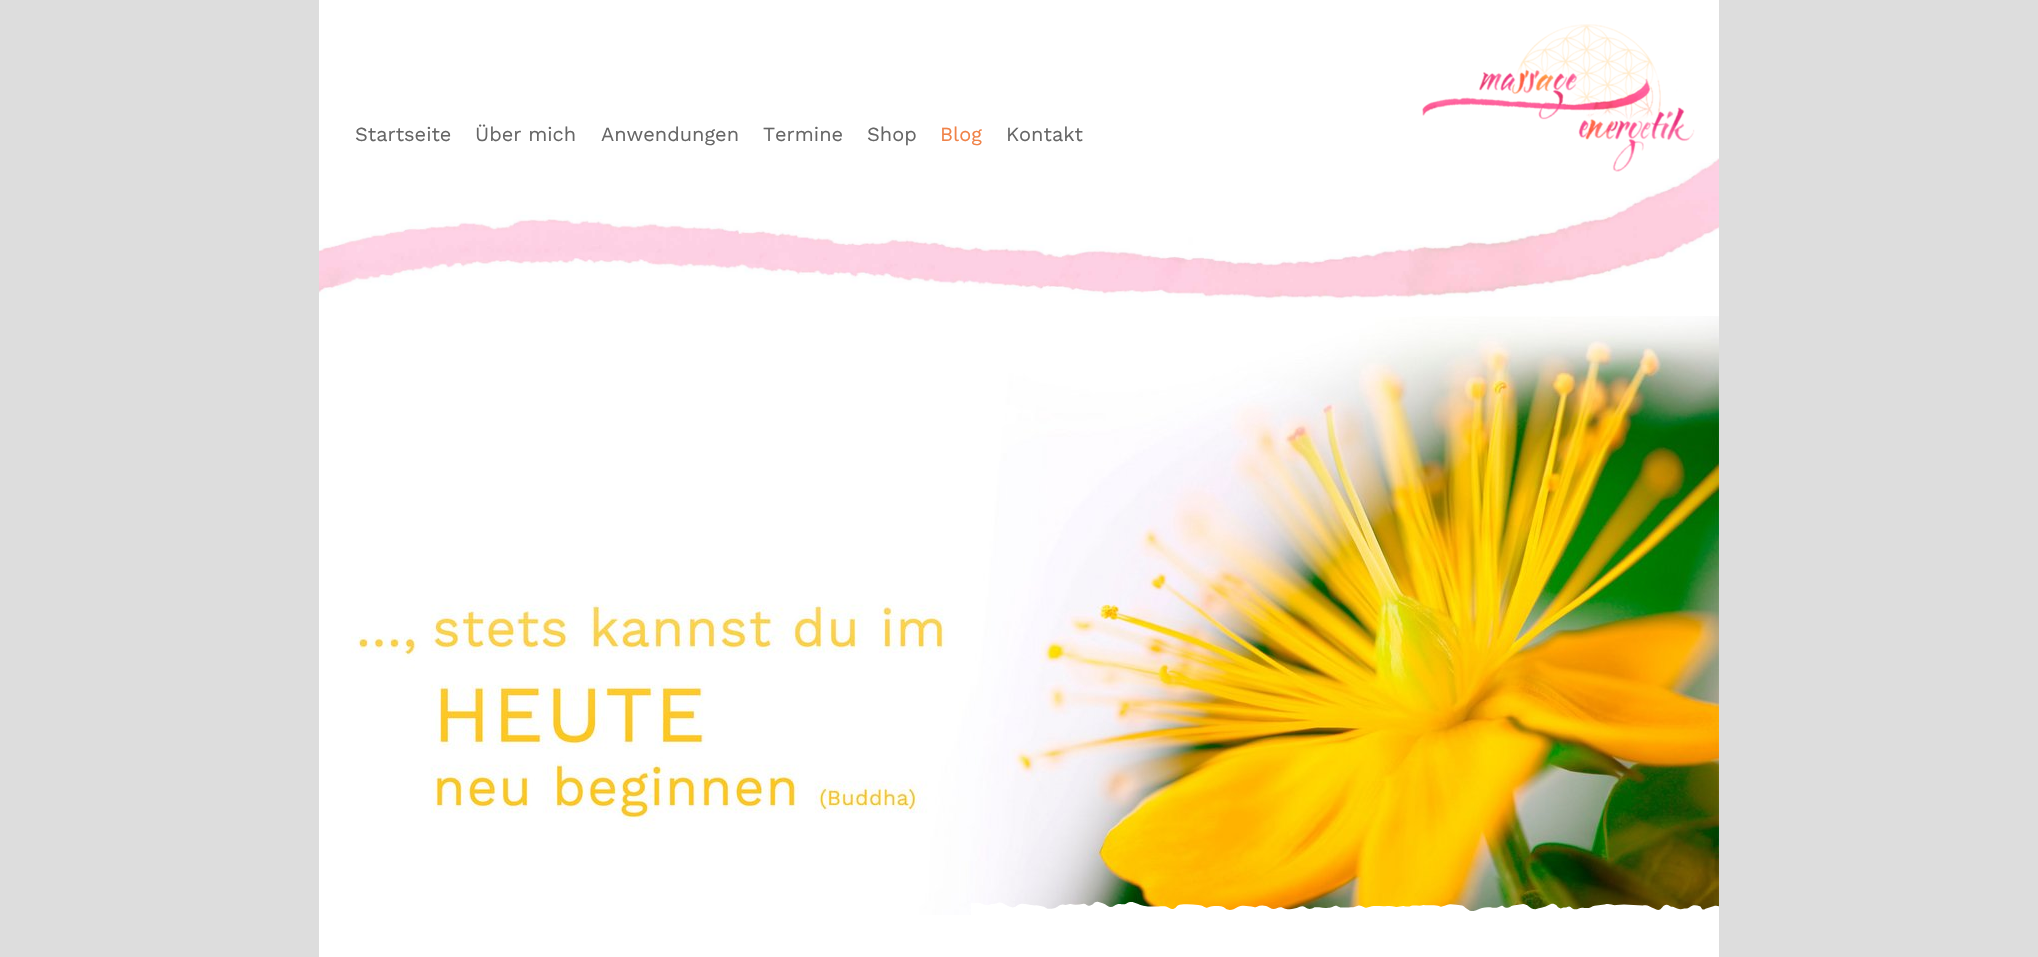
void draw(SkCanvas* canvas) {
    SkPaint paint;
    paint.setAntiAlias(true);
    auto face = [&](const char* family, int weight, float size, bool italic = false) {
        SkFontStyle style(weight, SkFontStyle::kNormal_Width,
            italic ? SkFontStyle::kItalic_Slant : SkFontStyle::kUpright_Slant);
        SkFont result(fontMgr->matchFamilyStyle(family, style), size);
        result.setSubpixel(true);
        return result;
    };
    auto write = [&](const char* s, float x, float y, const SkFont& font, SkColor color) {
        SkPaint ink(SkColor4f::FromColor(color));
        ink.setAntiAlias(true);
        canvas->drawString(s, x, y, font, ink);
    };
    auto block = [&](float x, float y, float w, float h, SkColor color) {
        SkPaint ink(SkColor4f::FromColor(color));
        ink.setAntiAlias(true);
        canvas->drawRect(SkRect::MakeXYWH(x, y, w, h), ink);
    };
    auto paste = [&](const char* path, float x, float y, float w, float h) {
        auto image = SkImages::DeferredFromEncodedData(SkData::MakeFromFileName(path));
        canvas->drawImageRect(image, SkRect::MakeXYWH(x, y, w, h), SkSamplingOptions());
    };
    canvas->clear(SkColorSetRGB(221, 221, 221));
    block(319, 0, 1400, 957, SK_ColorWHITE);
    paste("pic1.png", 319, 158, 1400, 142);
    auto kFont1 = face("Work Sans", 400, 20);
    write("Startseite", 355, 141, kFont1, SkColorSetRGB(102, 102, 102));
    write("Über mich", 475, 141, kFont1, SkColorSetRGB(102, 102, 102));
    write("Anwendungen", 601, 141, kFont1, SkColorSetRGB(102, 102, 102));
    write("Termine", 763, 141, kFont1, SkColorSetRGB(102, 102, 102));
    write("Shop", 867, 141, kFont1, SkColorSetRGB(102, 102, 102));
    write("Blog", 940, 141, kFont1, SkColorSetRGB(240, 130, 72));
    write("Kontakt", 1006, 141, kFont1, SkColorSetRGB(102, 102, 102));
    paste("pic2.png", 1422, 24, 273, 148);
    paste("pic3.png", 351, 316, 1368, 599);
    paste("pic4.png", 971, 901, 748, 14);
}
